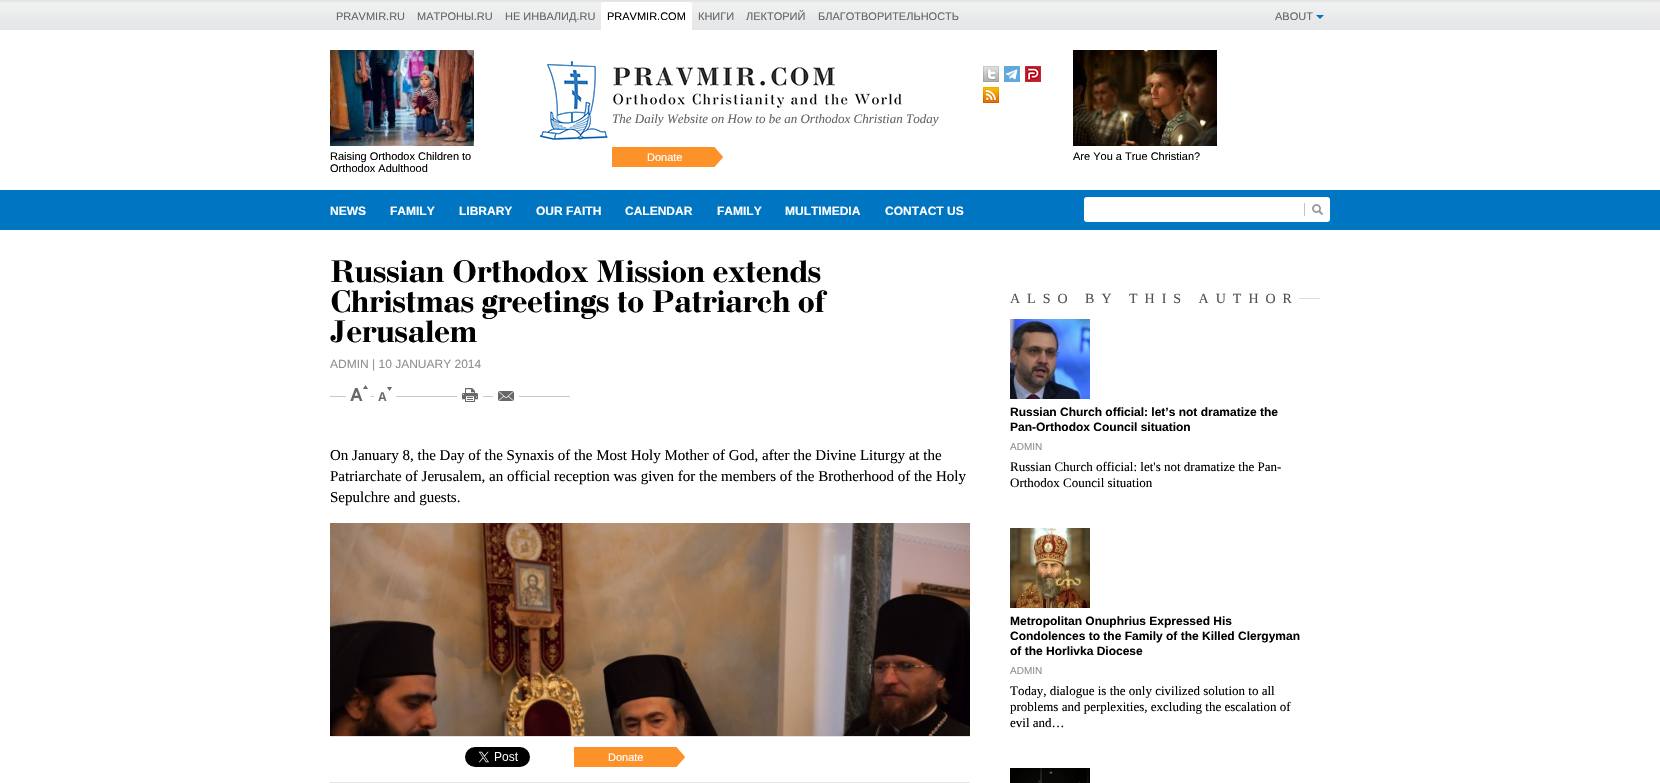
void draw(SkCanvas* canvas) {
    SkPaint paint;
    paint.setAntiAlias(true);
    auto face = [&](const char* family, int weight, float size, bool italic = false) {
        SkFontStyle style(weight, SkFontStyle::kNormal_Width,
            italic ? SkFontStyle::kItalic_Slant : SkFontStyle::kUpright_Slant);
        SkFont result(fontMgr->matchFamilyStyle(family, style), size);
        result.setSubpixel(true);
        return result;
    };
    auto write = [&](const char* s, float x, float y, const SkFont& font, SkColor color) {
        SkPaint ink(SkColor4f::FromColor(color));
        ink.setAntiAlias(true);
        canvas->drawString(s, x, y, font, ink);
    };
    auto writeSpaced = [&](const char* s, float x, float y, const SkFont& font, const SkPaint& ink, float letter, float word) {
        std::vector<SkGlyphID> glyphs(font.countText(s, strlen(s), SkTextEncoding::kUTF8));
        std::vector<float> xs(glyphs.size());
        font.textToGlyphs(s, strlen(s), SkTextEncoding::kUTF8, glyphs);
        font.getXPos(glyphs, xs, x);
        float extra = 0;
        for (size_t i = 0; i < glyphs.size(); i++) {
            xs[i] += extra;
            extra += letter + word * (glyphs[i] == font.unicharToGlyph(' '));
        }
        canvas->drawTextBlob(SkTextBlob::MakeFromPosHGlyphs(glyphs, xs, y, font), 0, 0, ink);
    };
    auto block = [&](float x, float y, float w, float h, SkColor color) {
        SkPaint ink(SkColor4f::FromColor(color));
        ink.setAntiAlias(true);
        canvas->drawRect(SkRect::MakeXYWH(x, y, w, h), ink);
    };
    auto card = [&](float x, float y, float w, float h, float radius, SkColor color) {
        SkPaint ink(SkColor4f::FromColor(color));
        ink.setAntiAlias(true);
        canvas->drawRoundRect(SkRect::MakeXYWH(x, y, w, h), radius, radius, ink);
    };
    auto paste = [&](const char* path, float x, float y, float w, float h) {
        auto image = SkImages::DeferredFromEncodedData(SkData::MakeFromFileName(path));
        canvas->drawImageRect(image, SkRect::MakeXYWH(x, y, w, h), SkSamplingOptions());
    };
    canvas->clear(SK_ColorWHITE);
    paste("pic1.png", 0, 0, 1660, 30);
    auto kFont1 = face("Liberation Sans", 400, 11);
    write("PRAVMIR.RU", 336, 20, kFont1, SkColorSetRGB(99, 100, 102));
    write("МАТРОНЫ.RU", 417, 20, kFont1, SkColorSetRGB(99, 100, 102));
    write("НЕ ИНВАЛИД.RU", 505, 20, kFont1, SkColorSetRGB(99, 100, 102));
    paint.setColor(SK_ColorWHITE);
    canvas->drawPath(SkPathBuilder().moveTo(603, 2).lineTo(690, 2).cubicTo(691, 2, 692, 3, 692, 4).lineTo(692, 30).lineTo(601, 30).lineTo(601, 4).cubicTo(601, 3, 602, 2, 603, 2).close().detach(), paint);
    write("PRAVMIR.COM", 607, 20, kFont1, SK_ColorBLACK);
    write("КНИГИ", 698, 20, kFont1, SkColorSetRGB(99, 100, 102));
    write("ЛЕКТОРИЙ", 746, 20, kFont1, SkColorSetRGB(99, 100, 102));
    write("БЛАГОТВОРИТЕЛЬНОСТЬ", 818, 20, kFont1, SkColorSetRGB(99, 100, 102));
    write("ABOUT", 1275, 20, kFont1, SkColorSetRGB(99, 100, 102));
    paint.setColor(SkColorSetRGB(0, 116, 193));
    canvas->drawPath(SkPathBuilder().moveTo(1316, 15).lineTo(1324, 15).lineTo(1320, 19).close().detach(), paint);
    paste("pic2.png", 330, 50, 144, 96);
    write("Raising Orthodox Children to", 330, 160, kFont1, SK_ColorBLACK);
    write("Orthodox Adulthood", 330, 172, kFont1, SK_ColorBLACK);
    paste("pic3.png", 540, 61, 362, 79);
    paste("pic4.png", 983, 66, 16, 16);
    paste("pic5.png", 1004, 66, 16, 16);
    paste("pic6.png", 1025, 66, 16, 16);
    paste("pic7.png", 983, 87, 16, 16);
    auto kFont2 = face("Liberation Serif", 400, 13, true);
    write("The Daily Website on How to be an Orthodox Christian Today", 612, 123, kFont2, SkColorSetRGB(99, 100, 102));
    paste("pic8.png", 612, 147, 111, 20);
    write("Donate", 647, 161, kFont1, SK_ColorWHITE);
    paste("pic9.png", 1073, 50, 144, 96);
    write("Are You a True Christian?", 1073, 160, kFont1, SK_ColorBLACK);
    block(0, 190, 1660, 40, SkColorSetRGB(0, 117, 193));
    auto kFont3 = face("Liberation Sans", 700, 12);
    write("NEWS", 330, 215, kFont3, SK_ColorWHITE);
    write("FAMILY", 390, 215, kFont3, SK_ColorWHITE);
    write("LIBRARY", 459, 215, kFont3, SK_ColorWHITE);
    write("OUR FAITH", 536, 215, kFont3, SK_ColorWHITE);
    write("CALENDAR", 625, 215, kFont3, SK_ColorWHITE);
    write("FAMILY", 717, 215, kFont3, SK_ColorWHITE);
    write("MULTIMEDIA", 785, 215, kFont3, SK_ColorWHITE);
    write("CONTACT US", 885, 215, kFont3, SK_ColorWHITE);
    card(1084, 197, 246, 25, 3, SK_ColorWHITE);
    paste("pic10.png", 1304, 203, 19, 13);
    auto kFont4 = face("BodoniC", 700, 33);
    write("Russian Orthodox Mission extends", 330, 282, kFont4, SK_ColorBLACK);
    write("Christmas greetings to Patriarch of", 330, 312, kFont4, SK_ColorBLACK);
    write("Jerusalem", 330, 342, kFont4, SK_ColorBLACK);
    auto kFont5 = face("Liberation Sans", 400, 12);
    write("ADMIN | 10 JANUARY 2014", 330, 368, kFont5, SkColorSetRGB(144, 144, 144));
    block(330, 396, 240, 1, SkColorSetRGB(199, 200, 202));
    block(346, 396, 25, 1, SK_ColorWHITE);
    paste("pic11.png", 350, 385, 18, 16);
    block(374, 396, 22, 1, SK_ColorWHITE);
    paste("pic12.png", 378, 387, 14, 14);
    block(457, 396, 26, 1, SK_ColorWHITE);
    paste("pic13.png", 462, 388, 16, 14);
    block(493, 396, 26, 1, SK_ColorWHITE);
    paste("pic14.png", 498, 391, 16, 10);
    auto kFont6 = face("Liberation Serif", 400, 15);
    write("On January 8, the Day of the Synaxis of the Most Holy Mother of God, after the Divine Liturgy at the", 330, 460, kFont6, SK_ColorBLACK);
    write("Patriarchate of Jerusalem, an official reception was given for the members of the Brotherhood of the Holy", 330, 481, kFont6, SK_ColorBLACK);
    write("Sepulchre and guests.", 330, 502, kFont6, SK_ColorBLACK);
    paste("pic15.png", 330, 523, 640, 213);
    block(330, 736, 640, 1, SkColorSetRGB(227, 228, 229));
    block(330, 782, 640, 1, SkColorSetRGB(227, 228, 229));
    paste("pic16.png", 465, 747, 65, 20);
    paste("pic8.png", 574, 747, 111, 20);
    write("Donate", 608, 761, kFont1, SK_ColorWHITE);
    block(1299, 298, 21, 1, SkColorSetRGB(221, 221, 221));
    auto kFont7 = face("Liberation Serif", 400, 14);
    paint.setColor(SkColorSetRGB(80, 80, 80));
    writeSpaced("ALSO BY THIS AUTHOR", 1010, 303, kFont7, paint, 7, 0);
    paste("pic17.png", 1010, 319, 80, 80);
    write("Russian Church official: let’s not dramatize the", 1010, 416, kFont3, SK_ColorBLACK);
    write("Pan-Orthodox Council situation", 1010, 431, kFont3, SK_ColorBLACK);
    auto kFont8 = face("Liberation Sans", 400, 10);
    write("ADMIN", 1010, 450, kFont8, SkColorSetRGB(144, 144, 144));
    auto kFont9 = face("Liberation Serif", 400, 13);
    write("Russian Church official: let's not dramatize the Pan-", 1010, 471, kFont9, SK_ColorBLACK);
    write("Orthodox Council situation", 1010, 487, kFont9, SK_ColorBLACK);
    paste("pic18.png", 1010, 528, 80, 80);
    write("Metropolitan Onuphrius Expressed His", 1010, 625, kFont3, SK_ColorBLACK);
    write("Condolences to the Family of the Killed Clergyman", 1010, 640, kFont3, SK_ColorBLACK);
    write("of the Horlivka Diocese", 1010, 655, kFont3, SK_ColorBLACK);
    write("ADMIN", 1010, 674, kFont8, SkColorSetRGB(144, 144, 144));
    write("Today, dialogue is the only civilized solution to all", 1010, 695, kFont9, SK_ColorBLACK);
    write("problems and perplexities, excluding the escalation of", 1010, 711, kFont9, SK_ColorBLACK);
    write("evil and…", 1010, 727, kFont9, SK_ColorBLACK);
    paste("pic19.png", 1010, 768, 80, 15);
}
